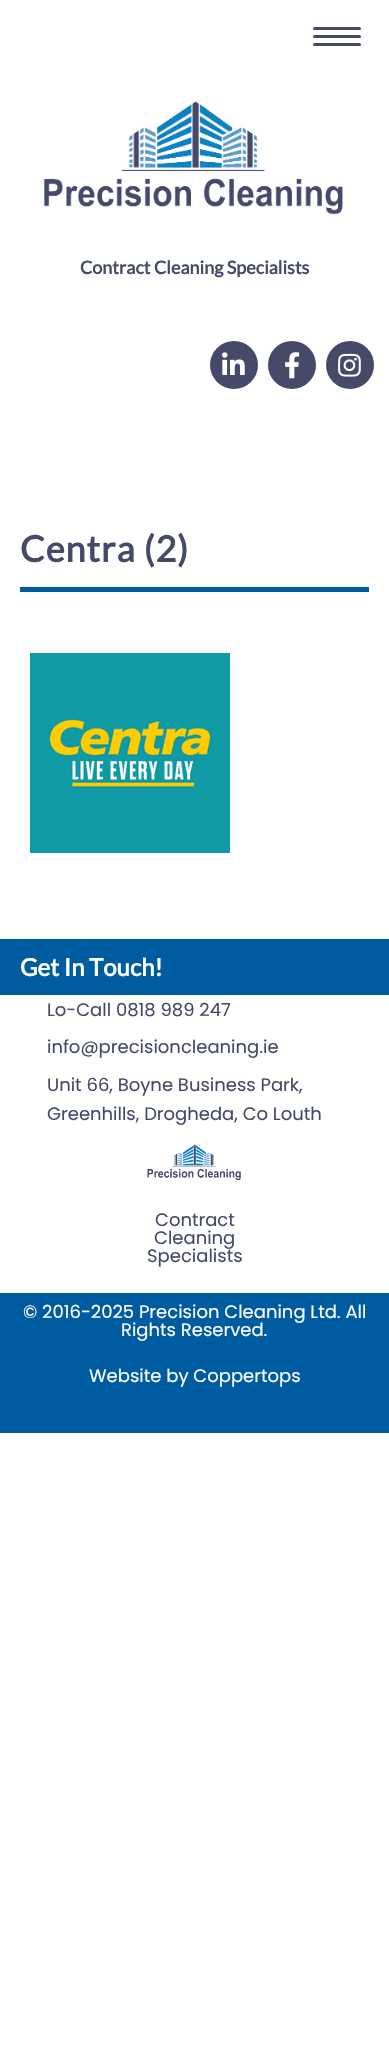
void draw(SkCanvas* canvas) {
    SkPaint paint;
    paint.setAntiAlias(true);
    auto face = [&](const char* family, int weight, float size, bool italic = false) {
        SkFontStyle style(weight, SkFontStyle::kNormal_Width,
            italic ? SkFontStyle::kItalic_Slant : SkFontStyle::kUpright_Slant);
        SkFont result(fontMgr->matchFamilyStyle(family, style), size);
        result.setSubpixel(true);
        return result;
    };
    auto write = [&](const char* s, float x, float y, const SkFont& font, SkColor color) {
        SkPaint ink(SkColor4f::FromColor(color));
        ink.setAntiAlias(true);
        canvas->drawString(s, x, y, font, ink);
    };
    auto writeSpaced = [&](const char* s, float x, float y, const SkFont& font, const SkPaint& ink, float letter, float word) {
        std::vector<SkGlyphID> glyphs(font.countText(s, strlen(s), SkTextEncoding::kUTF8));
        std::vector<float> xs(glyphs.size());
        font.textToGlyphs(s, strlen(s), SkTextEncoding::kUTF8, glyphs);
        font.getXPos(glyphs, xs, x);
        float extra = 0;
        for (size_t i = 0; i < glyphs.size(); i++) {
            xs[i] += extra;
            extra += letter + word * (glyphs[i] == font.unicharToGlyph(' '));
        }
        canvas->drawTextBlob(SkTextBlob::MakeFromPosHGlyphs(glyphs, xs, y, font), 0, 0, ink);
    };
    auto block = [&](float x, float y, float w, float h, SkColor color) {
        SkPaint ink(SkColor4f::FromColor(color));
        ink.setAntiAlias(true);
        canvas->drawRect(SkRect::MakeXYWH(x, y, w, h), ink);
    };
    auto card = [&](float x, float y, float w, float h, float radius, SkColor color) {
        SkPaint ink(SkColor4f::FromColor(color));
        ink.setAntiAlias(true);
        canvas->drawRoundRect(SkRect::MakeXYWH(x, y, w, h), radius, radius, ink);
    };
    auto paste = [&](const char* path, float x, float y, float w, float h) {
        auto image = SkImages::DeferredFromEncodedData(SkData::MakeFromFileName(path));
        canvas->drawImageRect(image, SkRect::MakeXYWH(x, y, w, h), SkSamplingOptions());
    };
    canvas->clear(SK_ColorWHITE);
    card(313, 35, 48, 3, 1.5f, SkColorSetRGB(70, 74, 105));
    card(313, 27, 48, 3, 1.5f, SkColorSetRGB(70, 74, 105));
    card(313, 43, 48, 3, 1.5f, SkColorSetRGB(70, 74, 105));
    paste("pic1.png", 43, 101, 300, 114);
    auto kFont1 = face("Lato", 700, 18);
    write("Contract Cleaning Specialists", 80, 274, kFont1, SkColorSetRGB(70, 74, 105));
    paint.setColor(SkColorSetRGB(70, 74, 105));
    canvas->drawCircle(234, 365, 24, paint);
    paste("pic2.png", 222, 352, 23, 23);
    canvas->drawCircle(292, 365, 24, paint);
    paste("pic3.png", 285, 352, 15, 27);
    canvas->drawCircle(350, 365, 24, paint);
    paste("pic4.png", 338, 353, 23, 24);
    auto kFont2 = face("Lato", 700, 36);
    writeSpaced("Centra (2)", 20, 562, kFont2, paint, 1, 0);
    block(20, 587, 349, 5, SkColorSetRGB(0, 92, 160));
    paste("pic5.png", 30, 653, 200, 200);
    block(0, 939, 389, 56, SkColorSetRGB(0, 92, 160));
    auto kFont3 = face("Lato", 700, 24);
    write("Get In Touch!", 20, 976, kFont3, SK_ColorWHITE);
    auto kFont4 = face("Poppins", 400, 18);
    write("Lo-Call 0818 989 247", 47, 1016, kFont4, SkColorSetRGB(70, 74, 105));
    write("info@precisioncleaning.ie", 47, 1053, kFont4, SkColorSetRGB(70, 74, 105));
    write("Unit 66, Boyne Business Park,", 47, 1091, kFont4, SkColorSetRGB(70, 74, 105));
    write("Greenhills, Drogheda, Co Louth", 47, 1120, kFont4, SkColorSetRGB(70, 74, 105));
    paste("pic6.png", 147, 1144, 94, 37);
    write("Contract", 155, 1226, kFont4, SkColorSetRGB(70, 74, 105));
    write("Cleaning", 154, 1244, kFont4, SkColorSetRGB(70, 74, 105));
    write("Specialists", 147, 1262, kFont4, SkColorSetRGB(70, 74, 105));
    block(0, 1293, 389, 140, SkColorSetRGB(0, 92, 160));
    write("© 2016-2025 Precision Cleaning Ltd. All", 23, 1318, kFont4, SK_ColorWHITE);
    write("Rights Reserved.", 121, 1336, kFont4, SK_ColorWHITE);
    write("Website by Coppertops", 89, 1382, kFont4, SK_ColorWHITE);
}
